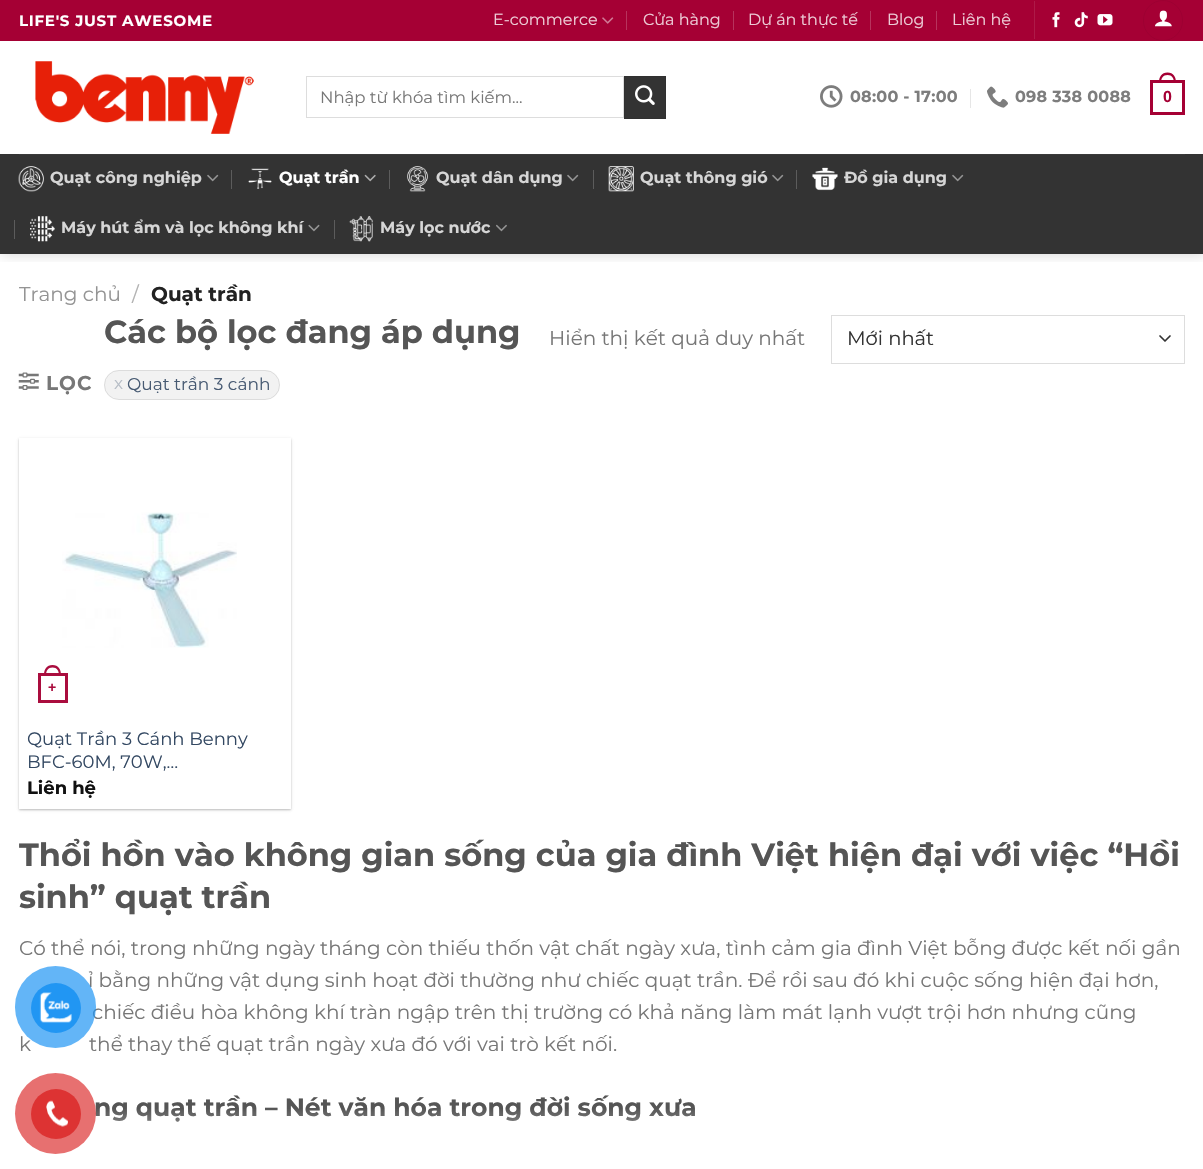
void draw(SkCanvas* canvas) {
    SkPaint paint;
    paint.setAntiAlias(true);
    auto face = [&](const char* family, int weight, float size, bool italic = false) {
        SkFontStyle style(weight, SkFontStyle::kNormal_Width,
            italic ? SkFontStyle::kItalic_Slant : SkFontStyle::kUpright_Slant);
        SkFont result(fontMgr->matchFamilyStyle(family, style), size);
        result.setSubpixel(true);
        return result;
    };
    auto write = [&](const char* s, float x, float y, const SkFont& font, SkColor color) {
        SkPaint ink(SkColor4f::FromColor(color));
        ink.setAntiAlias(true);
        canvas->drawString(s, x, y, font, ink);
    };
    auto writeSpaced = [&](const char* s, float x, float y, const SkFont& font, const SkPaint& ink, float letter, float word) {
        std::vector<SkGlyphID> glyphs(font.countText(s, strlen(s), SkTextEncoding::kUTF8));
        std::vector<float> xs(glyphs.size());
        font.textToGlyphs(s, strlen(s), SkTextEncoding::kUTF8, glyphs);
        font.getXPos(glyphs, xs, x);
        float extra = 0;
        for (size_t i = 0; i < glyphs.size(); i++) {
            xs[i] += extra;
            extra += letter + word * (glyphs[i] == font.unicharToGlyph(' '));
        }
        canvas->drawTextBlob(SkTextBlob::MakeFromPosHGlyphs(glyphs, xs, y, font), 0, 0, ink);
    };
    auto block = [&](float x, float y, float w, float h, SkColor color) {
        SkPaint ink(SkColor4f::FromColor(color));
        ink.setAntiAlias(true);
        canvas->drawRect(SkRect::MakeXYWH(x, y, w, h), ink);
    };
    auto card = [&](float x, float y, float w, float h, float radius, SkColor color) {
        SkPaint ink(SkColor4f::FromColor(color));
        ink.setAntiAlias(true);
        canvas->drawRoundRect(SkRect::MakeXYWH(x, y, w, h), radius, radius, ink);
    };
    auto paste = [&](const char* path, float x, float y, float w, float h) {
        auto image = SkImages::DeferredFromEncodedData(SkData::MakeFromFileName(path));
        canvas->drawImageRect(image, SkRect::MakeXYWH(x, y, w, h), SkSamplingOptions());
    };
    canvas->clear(SK_ColorWHITE);
    canvas->save();
    canvas->clipRect(SkRect::MakeXYWH(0, 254, 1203, 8));
    paint.setColor(SkColorSetARGB(38, 0, 0, 0));
    paint.setMaskFilter(SkMaskFilter::MakeBlur(kNormal_SkBlurStyle, 6));
    canvas->drawRect(SkRect::MakeXYWH(1, 1, 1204, 254), paint);
    paint.setMaskFilter(nullptr);
    canvas->restore();
    block(0, 0, 1203, 41, SkColorSetRGB(165, 0, 52));
    auto kFont1 = face("Montserrat", 700, 15);
    paint.setColor(SK_ColorWHITE);
    writeSpaced("LIFE'S JUST AWESOME", 19, 26, kFont1, paint, 0.75f, 0);
    auto kFont2 = face("Montserrat", 400, 16);
    write("E-commerce", 493, 25, kFont2, SkColorSetRGB(237, 204, 214));
    paste("pic1.png", 602, 17, 12, 7);
    block(626, 11, 1, 19, SkColorSetRGB(183, 51, 93));
    write("Cửa hàng", 643, 25, kFont2, SkColorSetRGB(237, 204, 214));
    block(733, 11, 1, 19, SkColorSetRGB(183, 51, 93));
    write("Dự án thực tế", 748, 25, kFont2, SkColorSetRGB(237, 204, 214));
    block(870, 11, 1, 19, SkColorSetRGB(183, 51, 93));
    write("Blog", 887, 25, kFont2, SkColorSetRGB(237, 204, 214));
    block(936, 11, 1, 19, SkColorSetRGB(183, 51, 93));
    write("Liên hệ", 952, 25, kFont2, SkColorSetRGB(237, 204, 214));
    block(1034, 1, 1, 38, SkColorSetRGB(174, 26, 72));
    paste("pic2.png", 1052, 12, 8, 16);
    paste("pic3.png", 1074, 12, 14, 16);
    paste("pic4.png", 1097, 14, 16, 12);
    paint.setStyle(SkPaint::kStroke_Style);
    paint.setStrokeWidth(1);
    paint.setColor(SkColorSetRGB(157, 0, 49));
    canvas->drawRoundRect(SkRect::MakeXYWH(1143.5f, 0.5f, 39, 40), 19.5f, 19.5f, paint);
    paste("pic5.png", 1155, 10, 17, 17);
    paste("pic6.png", 35, 61, 219, 73);
    paint.setColor(SkColorSetRGB(221, 221, 221));
    canvas->drawRect(SkRect::MakeXYWH(306.5f, 76.5f, 317, 41), paint);
    auto kFont3 = face("Montserrat", 400, 16.5f);
    write("Nhập từ khóa tìm kiếm...", 320, 103, kFont3, SkColorSetRGB(119, 119, 119));
    paint.setStyle(SkPaint::kFill_Style);
    paint.setColor(SkColorSetRGB(51, 51, 51));
    canvas->drawRect(SkRect::MakeXYWH(624.5f, 76.5f, 41, 42), paint);
    paint.setStyle(SkPaint::kStroke_Style);
    paint.setColor(SkColorSetRGB(48, 48, 48));
    canvas->drawRect(SkRect::MakeXYWH(624.5f, 76.5f, 41, 42), paint);
    paste("pic7.png", 635, 85, 20, 20);
    paste("pic8.png", 820, 85, 23, 23);
    auto kFont4 = face("Montserrat", 700, 16);
    paint.setStyle(SkPaint::kFill_Style);
    paint.setColor(SkColorSetRGB(125, 125, 125));
    writeSpaced("08:00 - 17:00", 850, 102, kFont4, paint, 0.25f, 0);
    block(970, 89, 1, 19, SkColorSetRGB(230, 230, 230));
    paste("pic9.png", 987, 86, 21, 22);
    writeSpaced("098 338 0088", 1015, 102, kFont4, paint, 0.25f, 0);
    paint.setStyle(SkPaint::kStroke_Style);
    paint.setStrokeWidth(3);
    paint.setColor(SkColorSetRGB(165, 0, 52));
    canvas->drawRect(SkRect::MakeXYWH(1151.5f, 81.5f, 32, 32), paint);
    paint.setStyle(SkPaint::kFill_Style);
    canvas->drawPath(SkPathBuilder(SkPathFillType::kEvenOdd).moveTo(1167.5f, 72.5f).cubicTo(1173.5f, 72.5f, 1176, 77, 1176, 82.5f).lineTo(1159, 82.5f).cubicTo(1159, 77, 1161.5f, 72.5f, 1167.5f, 72.5f).close().moveTo(1167.5f, 75).cubicTo(1172, 75, 1174, 78.5f, 1174, 82.5f).lineTo(1161, 82.5f).cubicTo(1161, 78.5f, 1163, 75, 1167.5f, 75).close().detach(), paint);
    auto kFont5 = face("Liberation Sans", 700, 16);
    writeSpaced("0", 1163, 102, kFont5, paint, 0.25f, 0);
    block(0, 154, 1203, 100, SkColorSetRGB(51, 51, 51));
    block(19, 154, 1166, 1, SkColorSetRGB(58, 58, 58));
    paste("pic10.png", 18, 166, 26, 26);
    write("Quạt công nghiệp", 50, 183, kFont4, SkColorSetRGB(214, 214, 214));
    paste("pic11.png", 207, 174, 12, 8);
    block(231, 170, 1, 19, SkColorSetRGB(92, 92, 92));
    paste("pic12.png", 248, 168, 24, 21);
    write("Quạt trần", 279, 183, kFont4, SK_ColorWHITE);
    paste("pic13.png", 364, 174, 12, 8);
    block(389, 170, 1, 19, SkColorSetRGB(92, 92, 92));
    paste("pic14.png", 407, 166, 21, 26);
    write("Quạt dân dụng", 436, 183, kFont4, SkColorSetRGB(214, 214, 214));
    paste("pic11.png", 567, 174, 12, 8);
    block(593, 170, 1, 19, SkColorSetRGB(92, 92, 92));
    paste("pic15.png", 608, 166, 26, 26);
    write("Quạt thông gió", 640, 183, kFont4, SkColorSetRGB(214, 214, 214));
    paste("pic11.png", 772, 174, 12, 8);
    block(796, 170, 1, 19, SkColorSetRGB(92, 92, 92));
    paste("pic16.png", 812, 167, 26, 24);
    write("Đồ gia dụng", 844, 183, kFont4, SkColorSetRGB(214, 214, 214));
    paste("pic11.png", 952, 174, 12, 8);
    block(14, 220, 1, 19, SkColorSetRGB(92, 92, 92));
    paste("pic17.png", 30, 216, 25, 26);
    write("Máy hút ẩm và lọc không khí", 61, 233, kFont4, SkColorSetRGB(214, 214, 214));
    paste("pic18.png", 308, 224, 12, 8);
    block(334, 220, 1, 19, SkColorSetRGB(92, 92, 92));
    paste("pic19.png", 349, 216, 24, 26);
    write("Máy lọc nước", 380, 233, kFont4, SkColorSetRGB(214, 214, 214));
    paste("pic20.png", 496, 224, 11, 8);
    auto kFont6 = face("Montserrat", 400, 20);
    write("Trang chủ", 19, 301, kFont6, SkColorSetRGB(148, 148, 148));
    write("/", 132, 301, kFont6, SkColorSetRGB(178, 178, 178));
    auto kFont7 = face("Montserrat", 700, 20);
    write("Quạt trần", 151, 301, kFont7, SkColorSetRGB(34, 34, 34));
    paste("pic21.png", 18, 372, 21, 18);
    paint.setColor(SkColorSetRGB(119, 119, 119));
    writeSpaced("LỌC", 46, 390, kFont7, paint, 1, 0);
    auto kFont8 = face("Montserrat", 700, 32);
    write("Các bộ lọc đang áp dụng", 104, 343, kFont8, SkColorSetRGB(85, 85, 85));
    card(104, 370, 176, 30, 15, SkColorSetRGB(242, 242, 242));
    paint.setStyle(SkPaint::kStroke_Style);
    paint.setStrokeWidth(1);
    paint.setColor(SkColorSetARGB(26, 26, 26, 26));
    canvas->drawRoundRect(SkRect::MakeXYWH(104.5f, 370.5f, 175, 29), 14.5f, 14.5f, paint);
    auto kFont9 = face("Montserrat", 400, 17);
    write("x", 114, 389, kFont9, SkColorSetRGB(182, 189, 198));
    write("Quạt trần 3 cánh", 127, 390, kFont9, SkColorSetRGB(71, 90, 114));
    write("Hiển thị kết quả duy nhất", 549, 345, kFont6, SkColorSetRGB(119, 119, 119));
    paint.setStrokeWidth(1.7f);
    paint.setStrokeCap(SkPaint::kRound_Cap);
    paint.setStrokeJoin(SkPaint::kRound_Join);
    paint.setColor(SkColorSetRGB(51, 51, 51));
    canvas->drawPath(SkPathBuilder().moveTo(1160, 336).lineTo(1165, 341).lineTo(1170, 336).detach(), paint);
    paint.setStrokeWidth(1);
    paint.setStrokeCap(SkPaint::kButt_Cap);
    paint.setStrokeJoin(SkPaint::kMiter_Join);
    paint.setColor(SkColorSetRGB(221, 221, 221));
    canvas->drawRect(SkRect::MakeXYWH(831.5f, 315.5f, 353, 48), paint);
    auto kFont10 = face("Montserrat", 400, 19.5f);
    write("Mới nhất", 847, 345, kFont10, SkColorSetRGB(51, 51, 51));
    paint.setStyle(SkPaint::kFill_Style);
    paint.setColor(SkColorSetARGB(61, 0, 0, 0));
    paint.setMaskFilter(SkMaskFilter::MakeBlur(kNormal_SkBlurStyle, 1));
    canvas->drawRect(SkRect::MakeXYWH(19, 439, 272, 371), paint);
    paint.setMaskFilter(nullptr);
    paint.setColor(SkColorSetARGB(31, 0, 0, 0));
    paint.setMaskFilter(SkMaskFilter::MakeBlur(kNormal_SkBlurStyle, 2));
    canvas->drawRect(SkRect::MakeXYWH(21, 441, 268, 367), paint);
    paint.setMaskFilter(nullptr);
    block(19, 438, 272, 371, SK_ColorWHITE);
    paste("pic22.png", 62, 512, 175, 136);
    paint.setStyle(SkPaint::kStroke_Style);
    paint.setStrokeWidth(3);
    paint.setColor(SkColorSetRGB(170, 13, 62));
    canvas->drawRect(SkRect::MakeXYWH(39.5f, 674.5f, 27, 27), paint);
    paint.setStyle(SkPaint::kFill_Style);
    canvas->drawPath(SkPathBuilder(SkPathFillType::kEvenOdd).moveTo(52.5f, 665).cubicTo(58.5f, 665, 61, 669.5f, 61, 675).lineTo(44, 675).cubicTo(44, 669.5f, 46.5f, 665, 52.5f, 665).close().moveTo(52.5f, 667.5f).cubicTo(57, 667.5f, 59, 671, 59, 675).lineTo(46, 675).cubicTo(46, 671, 48, 667.5f, 52.5f, 667.5f).close().detach(), paint);
    auto kFont11 = face("Liberation Sans", 700, 14);
    write("+", 48, 692, kFont11, SkColorSetRGB(170, 13, 62));
    auto kFont12 = face("Montserrat", 400, 18);
    write("Quạt Trần 3 Cánh Benny", 27, 745, kFont12, SkColorSetRGB(51, 72, 98));
    write("BFC-60M, 70W,…", 27, 768, kFont12, SkColorSetRGB(51, 72, 98));
    auto kFont13 = face("Montserrat", 700, 18);
    write("Liên hệ", 27, 794, kFont13, SkColorSetRGB(17, 17, 17));
    canvas->save();
    canvas->clipRect(SkRect::MakeXYWH(19, 834, 1166, 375));
    write("Thổi hồn vào không gian sống của gia đình Việt hiện đại với việc “Hồi", 19, 866, kFont8, SkColorSetRGB(85, 85, 85));
    canvas->restore();
    write("sinh” quạt trần", 19, 908, kFont8, SkColorSetRGB(85, 85, 85));
    write("Có thể nói, trong những ngày tháng còn thiếu thốn vật chất ngày xưa, tình cảm gia đình Việt bỗng được kết nối gần", 19, 955, kFont6, SkColorSetRGB(119, 119, 119));
    write("ỉ bằng những vật dụng sinh hoạt đời thường như chiếc quạt trần. Để rồi sau đó khi cuộc sống hiện đại hơn,", 88, 987, kFont6, SkColorSetRGB(119, 119, 119));
    write("chiếc điều hòa không khí tràn ngập trên thị trường có khả năng làm mát lạnh vượt trội hơn nhưng cũng", 92, 1019, kFont6, SkColorSetRGB(119, 119, 119));
    write("k", 19, 1051, kFont6, SkColorSetRGB(119, 119, 119));
    write("thể thay thế quạt trần ngày xưa đó với vai trò kết nối.", 89, 1051, kFont6, SkColorSetRGB(119, 119, 119));
    auto kFont14 = face("Montserrat", 700, 25);
    write("ng quạt trần – Nét văn hóa trong đời sống xưa", 94, 1116, kFont14, SkColorSetRGB(85, 85, 85));
    {
        const SkColor colors[] = {SkColorSetARGB(0, 255, 255, 255), SK_ColorWHITE};
        const float stops[] = {0, 1};
        const SkPoint ends[] = {{602, 1108}, {602, 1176}};
        paint.setShader(SkGradientShader::MakeLinear(ends, colors, stops, 2, SkTileMode::kClamp));
        paint.setAlpha(255);
    }
    canvas->drawRect(SkRect::MakeXYWH(95, 1109, 600, 13), paint);
    card(15, 966, 81, 82, 40.5f, SkColorSetARGB(179, 33, 150, 243));
    paint.setShader(nullptr);
    paint.setColor(SkColorSetRGB(33, 150, 243));
    canvas->drawCircle(56, 1008, 25, paint);
    paste("pic23.png", 39, 992, 33, 31);
    paint.setColor(SkColorSetARGB(179, 221, 51, 51));
    canvas->drawCircle(55.5f, 1113.5f, 40.5f, paint);
    paint.setColor(SkColorSetRGB(221, 51, 51));
    canvas->drawCircle(56, 1114, 25, paint);
    paste("pic24.png", 46, 1100, 22, 27);
}
